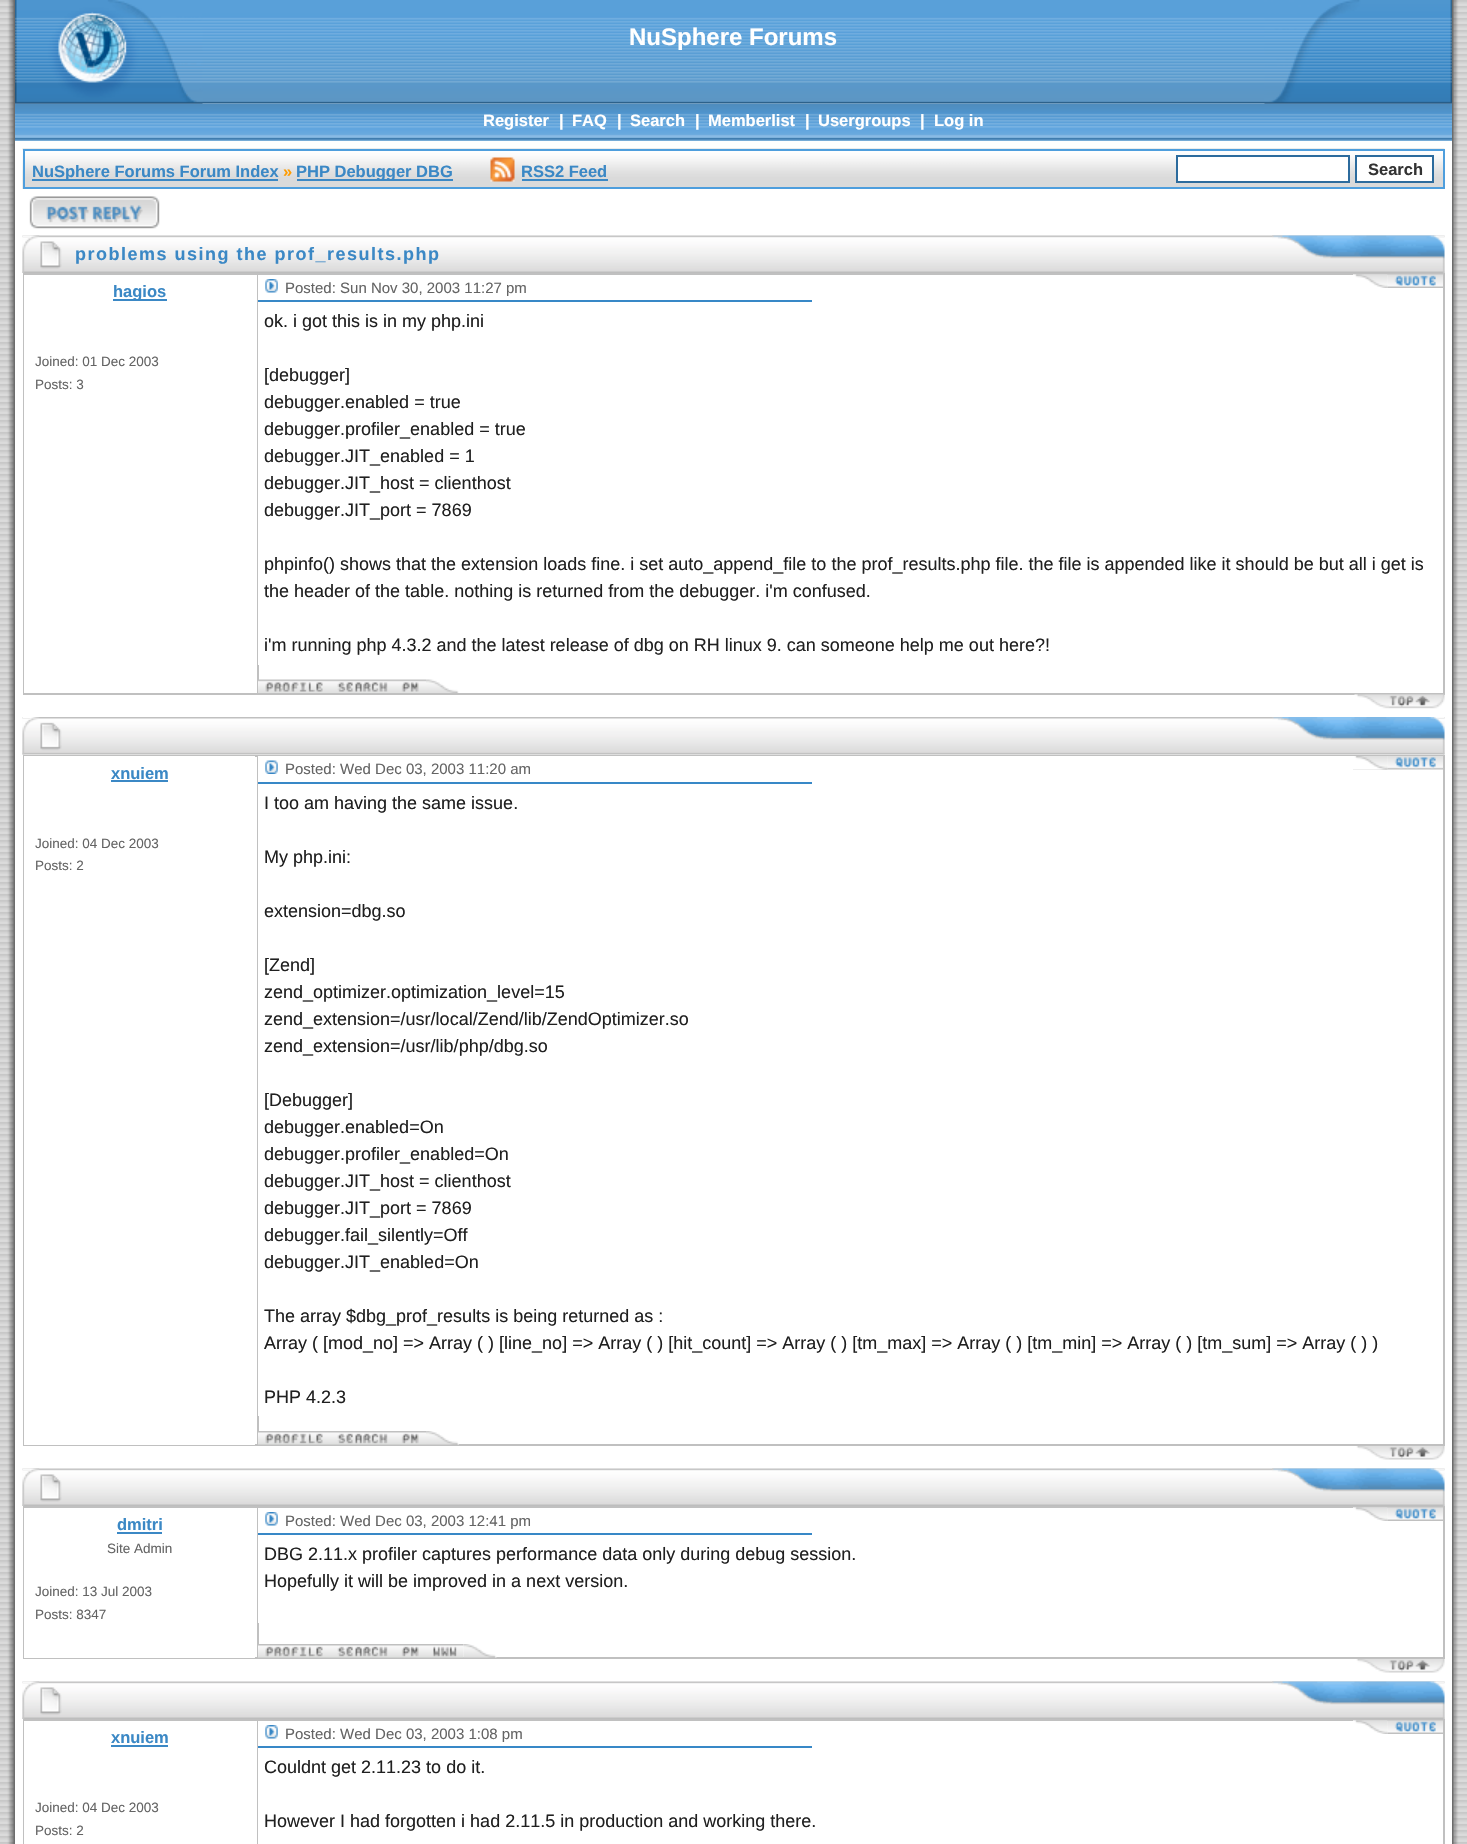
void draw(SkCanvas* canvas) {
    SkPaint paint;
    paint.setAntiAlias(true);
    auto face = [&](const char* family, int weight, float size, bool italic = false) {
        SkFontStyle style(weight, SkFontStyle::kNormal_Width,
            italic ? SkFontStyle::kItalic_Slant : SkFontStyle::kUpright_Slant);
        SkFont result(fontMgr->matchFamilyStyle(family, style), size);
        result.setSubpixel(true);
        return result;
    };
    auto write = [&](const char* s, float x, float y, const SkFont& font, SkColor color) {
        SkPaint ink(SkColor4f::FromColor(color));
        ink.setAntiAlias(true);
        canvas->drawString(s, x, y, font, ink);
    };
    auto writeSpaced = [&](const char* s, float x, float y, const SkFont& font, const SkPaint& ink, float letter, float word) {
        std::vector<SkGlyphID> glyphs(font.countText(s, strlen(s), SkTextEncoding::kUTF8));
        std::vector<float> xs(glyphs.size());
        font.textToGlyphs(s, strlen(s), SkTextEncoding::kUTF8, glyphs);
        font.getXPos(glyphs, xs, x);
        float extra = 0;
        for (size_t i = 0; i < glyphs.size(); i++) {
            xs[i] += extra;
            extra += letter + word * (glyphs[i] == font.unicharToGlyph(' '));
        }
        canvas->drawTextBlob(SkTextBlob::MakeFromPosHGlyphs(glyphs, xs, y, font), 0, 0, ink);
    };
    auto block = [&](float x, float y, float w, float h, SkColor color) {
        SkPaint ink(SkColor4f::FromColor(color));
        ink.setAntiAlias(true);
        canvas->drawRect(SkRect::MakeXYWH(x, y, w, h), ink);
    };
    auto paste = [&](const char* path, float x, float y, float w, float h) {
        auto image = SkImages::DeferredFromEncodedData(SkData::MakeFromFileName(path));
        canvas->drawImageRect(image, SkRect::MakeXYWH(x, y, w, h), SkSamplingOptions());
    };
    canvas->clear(SK_ColorWHITE);
    paste("pic1.png", 0, 0, 15, 1844);
    paste("pic2.png", 15, 0, 1437, 104);
    paste("pic5.png", 15, 103, 1437, 38);
    paste("pic3.png", 15, 0, 188, 104);
    auto kFont1 = face("Liberation Sans", 700, 24);
    write("NuSphere Forums", 629, 45, kFont1, SK_ColorWHITE);
    paste("pic4.png", 1264, 0, 188, 104);
    auto kFont2 = face("Liberation Sans", 700, 16.5f);
    write("Register", 483, 126, kFont2, SK_ColorWHITE);
    write("|", 559, 126, kFont2, SK_ColorWHITE);
    write("FAQ", 572, 126, kFont2, SK_ColorWHITE);
    write("|", 617, 126, kFont2, SK_ColorWHITE);
    write("Search", 630, 126, kFont2, SK_ColorWHITE);
    write("|", 695, 126, kFont2, SK_ColorWHITE);
    write("Memberlist", 708, 126, kFont2, SK_ColorWHITE);
    write("|", 805, 126, kFont2, SK_ColorWHITE);
    write("Usergroups", 818, 126, kFont2, SK_ColorWHITE);
    write("|", 920, 126, kFont2, SK_ColorWHITE);
    write("Log in", 934, 126, kFont2, SK_ColorWHITE);
    paste("pic6.png", 22, 148, 1423, 41);
    paint.setStyle(SkPaint::kStroke_Style);
    paint.setStrokeWidth(2);
    paint.setColor(SkColorSetRGB(78, 158, 221));
    canvas->drawRect(SkRect::MakeXYWH(24, 150, 1420, 38), paint);
    block(32, 179, 246, 2, SkColorSetRGB(59, 136, 197));
    write("NuSphere Forums Forum Index", 32, 177, kFont2, SkColorSetRGB(59, 136, 197));
    write("»", 283, 177, kFont2, SkColorSetRGB(255, 156, 0));
    block(297, 179, 156, 2, SkColorSetRGB(59, 136, 197));
    write("PHP Debugger DBG", 296, 177, kFont2, SkColorSetRGB(59, 136, 197));
    paste("pic7.png", 490, 157, 25, 25);
    write("RSS2 Feed", 521, 177, kFont2, SkColorSetRGB(59, 136, 197));
    block(522, 179, 86, 2, SkColorSetRGB(59, 136, 197));
    paint.setStyle(SkPaint::kFill_Style);
    paint.setColor(SK_ColorWHITE);
    canvas->drawRect(SkRect::MakeXYWH(1177, 156, 172, 26), paint);
    paint.setStyle(SkPaint::kStroke_Style);
    paint.setColor(SkColorSetRGB(44, 107, 157));
    canvas->drawRect(SkRect::MakeXYWH(1177, 156, 172, 26), paint);
    paint.setStyle(SkPaint::kFill_Style);
    paint.setColor(SK_ColorWHITE);
    canvas->drawRect(SkRect::MakeXYWH(1356, 156, 77, 26), paint);
    paint.setStyle(SkPaint::kStroke_Style);
    paint.setColor(SkColorSetRGB(44, 107, 157));
    canvas->drawRect(SkRect::MakeXYWH(1356, 156, 77, 26), paint);
    write("Search", 1368, 175, kFont2, SkColorSetRGB(51, 51, 51));
    paste("pic8.png", 29, 196, 131, 33);
    paste("pic9.png", 22, 235, 1423, 38);
    paste("pic10.png", 22, 235, 40, 38);
    auto kFont3 = face("Liberation Sans", 700, 18);
    paint.setStyle(SkPaint::kFill_Style);
    paint.setColor(SkColorSetRGB(59, 136, 197));
    writeSpaced("problems using the prof_results.php", 75, 260, kFont3, paint, 1.5f, 0);
    paste("pic11.png", 1272, 235, 173, 38);
    paint.setStyle(SkPaint::kStroke_Style);
    paint.setColor(SkColorSetRGB(192, 192, 192));
    canvas->drawRect(SkRect::MakeXYWH(24, 274, 1420, 420), paint);
    block(24, 275, 1, 418, SK_ColorWHITE);
    block(113, 299, 54, 2, SkColorSetRGB(59, 136, 197));
    write("hagios", 113, 297, kFont2, SkColorSetRGB(59, 136, 197));
    auto kFont4 = face("Liberation Sans", 400, 13.5f);
    write("Joined: 01 Dec 2003", 35, 366, kFont4, SkColorSetRGB(100, 100, 100));
    write("Posts: 3", 35, 389, kFont4, SkColorSetRGB(100, 100, 100));
    block(257, 275, 2, 418, SkColorSetRGB(192, 192, 192));
    block(258, 275, 1, 390, SK_ColorWHITE);
    paste("pic12.png", 265, 279, 13, 14);
    auto kFont5 = face("Liberation Sans", 400, 15);
    write("Posted: Sun Nov 30, 2003 11:27 pm", 285, 293, kFont5, SkColorSetRGB(100, 100, 100));
    paste("pic13.png", 1353, 274, 35, 14);
    paste("pic15.png", 1387, 274, 56, 14);
    paste("pic14.png", 1353, 274, 35, 14);
    paste("pic16.png", 1394, 275, 42, 12);
    block(258, 300, 554, 2, SkColorSetRGB(56, 136, 199));
    auto kFont6 = face("Liberation Sans", 400, 18);
    write("ok. i got this is in my php.ini", 264, 327, kFont6, SkColorSetRGB(32, 32, 32));
    write("[debugger]", 264, 381, kFont6, SkColorSetRGB(32, 32, 32));
    write("debugger.enabled = true", 264, 408, kFont6, SkColorSetRGB(32, 32, 32));
    write("debugger.profiler_enabled = true", 264, 435, kFont6, SkColorSetRGB(32, 32, 32));
    write("debugger.JIT_enabled = 1", 264, 462, kFont6, SkColorSetRGB(32, 32, 32));
    write("debugger.JIT_host = clienthost", 264, 489, kFont6, SkColorSetRGB(32, 32, 32));
    write("debugger.JIT_port = 7869", 264, 516, kFont6, SkColorSetRGB(32, 32, 32));
    write("phpinfo() shows that the extension loads fine. i set auto_append_file to the prof_results.php file. the file is appended like it should be but all i get is", 264, 570, kFont6, SkColorSetRGB(32, 32, 32));
    write("the header of the table. nothing is returned from the debugger. i'm confused.", 264, 597, kFont6, SkColorSetRGB(32, 32, 32));
    write("i'm running php 4.3.2 and the latest release of dbg on RH linux 9. can someone help me out here?!", 264, 651, kFont6, SkColorSetRGB(32, 32, 32));
    paste("pic17.png", 258, 679, 168, 14);
    paste("pic18.png", 265, 682, 58, 10);
    paste("pic19.png", 337, 682, 51, 10);
    paste("pic20.png", 401, 682, 18, 10);
    paste("pic21.png", 426, 679, 33, 14);
    paste("pic22.png", 1354, 694, 91, 15);
    paste("pic23.png", 22, 717, 1423, 38);
    paste("pic24.png", 22, 717, 40, 38);
    paste("pic25.png", 1272, 717, 173, 38);
    canvas->drawRect(SkRect::MakeXYWH(24, 756, 1420, 689), paint);
    block(24, 756, 231, 689, SK_ColorWHITE);
    write("xnuiem", 111, 779, kFont2, SkColorSetRGB(59, 136, 197));
    block(111, 780, 57, 2, SkColorSetRGB(59, 136, 197));
    write("Joined: 04 Dec 2003", 35, 848, kFont4, SkColorSetRGB(100, 100, 100));
    write("Posts: 2", 35, 870, kFont4, SkColorSetRGB(100, 100, 100));
    block(257, 756, 2, 689, SkColorSetRGB(192, 192, 192));
    block(258, 756, 1185, 660, SK_ColorWHITE);
    paste("pic26.png", 265, 760, 13, 14);
    write("Posted: Wed Dec 03, 2003 11:20 am", 285, 774, kFont5, SkColorSetRGB(100, 100, 100));
    paste("pic27.png", 1353, 756, 35, 14);
    paste("pic29.png", 1387, 756, 56, 14);
    paste("pic28.png", 1353, 756, 35, 14);
    paste("pic30.png", 1394, 757, 42, 12);
    block(258, 782, 554, 2, SkColorSetRGB(56, 136, 199));
    write("I too am having the same issue.", 264, 809, kFont6, SkColorSetRGB(32, 32, 32));
    write("My php.ini:", 264, 863, kFont6, SkColorSetRGB(32, 32, 32));
    write("extension=dbg.so", 264, 917, kFont6, SkColorSetRGB(32, 32, 32));
    write("[Zend]", 264, 971, kFont6, SkColorSetRGB(32, 32, 32));
    write("zend_optimizer.optimization_level=15", 264, 998, kFont6, SkColorSetRGB(32, 32, 32));
    write("zend_extension=/usr/local/Zend/lib/ZendOptimizer.so", 264, 1025, kFont6, SkColorSetRGB(32, 32, 32));
    write("zend_extension=/usr/lib/php/dbg.so", 264, 1052, kFont6, SkColorSetRGB(32, 32, 32));
    write("[Debugger]", 264, 1106, kFont6, SkColorSetRGB(32, 32, 32));
    write("debugger.enabled=On", 264, 1133, kFont6, SkColorSetRGB(32, 32, 32));
    write("debugger.profiler_enabled=On", 264, 1160, kFont6, SkColorSetRGB(32, 32, 32));
    write("debugger.JIT_host = clienthost", 264, 1187, kFont6, SkColorSetRGB(32, 32, 32));
    write("debugger.JIT_port = 7869", 264, 1214, kFont6, SkColorSetRGB(32, 32, 32));
    write("debugger.fail_silently=Off", 264, 1241, kFont6, SkColorSetRGB(32, 32, 32));
    write("debugger.JIT_enabled=On", 264, 1268, kFont6, SkColorSetRGB(32, 32, 32));
    write("The array $dbg_prof_results is being returned as :", 264, 1322, kFont6, SkColorSetRGB(32, 32, 32));
    write("Array ( [mod_no] => Array ( ) [line_no] => Array ( ) [hit_count] => Array ( ) [tm_max] => Array ( ) [tm_min] => Array ( ) [tm_sum] => Array ( ) )", 264, 1349, kFont6, SkColorSetRGB(32, 32, 32));
    write("PHP 4.2.3", 264, 1403, kFont6, SkColorSetRGB(32, 32, 32));
    paste("pic31.png", 258, 1431, 168, 14);
    paste("pic32.png", 265, 1433, 58, 11);
    paste("pic33.png", 337, 1433, 51, 11);
    paste("pic34.png", 401, 1433, 18, 11);
    paste("pic35.png", 426, 1431, 33, 14);
    paste("pic36.png", 1356, 1446, 89, 14);
    paste("pic9.png", 22, 1468, 1423, 38);
    paste("pic10.png", 22, 1468, 40, 38);
    paste("pic11.png", 1272, 1468, 173, 38);
    canvas->drawRect(SkRect::MakeXYWH(24, 1507, 1420, 151), paint);
    block(24, 1508, 231, 150, SK_ColorWHITE);
    write("dmitri", 117, 1530, kFont2, SkColorSetRGB(59, 136, 197));
    block(117, 1532, 45, 2, SkColorSetRGB(59, 136, 197));
    write("Site Admin", 107, 1553, kFont4, SkColorSetRGB(100, 100, 100));
    write("Joined: 13 Jul 2003", 35, 1596, kFont4, SkColorSetRGB(100, 100, 100));
    write("Posts: 8347", 35, 1619, kFont4, SkColorSetRGB(100, 100, 100));
    block(257, 1508, 2, 150, SkColorSetRGB(192, 192, 192));
    block(258, 1508, 1, 115, SK_ColorWHITE);
    paste("pic12.png", 265, 1512, 13, 14);
    write("Posted: Wed Dec 03, 2003 12:41 pm", 285, 1526, kFont5, SkColorSetRGB(100, 100, 100));
    paste("pic13.png", 1353, 1507, 35, 14);
    paste("pic15.png", 1387, 1507, 56, 14);
    paste("pic14.png", 1353, 1507, 35, 14);
    paste("pic16.png", 1394, 1508, 42, 12);
    block(258, 1533, 554, 2, SkColorSetRGB(56, 136, 199));
    write("DBG 2.11.x profiler captures performance data only during debug session.", 264, 1560, kFont6, SkColorSetRGB(32, 32, 32));
    write("Hopefully it will be improved in a next version.", 264, 1587, kFont6, SkColorSetRGB(32, 32, 32));
    paste("pic37.png", 258, 1644, 206, 14);
    paste("pic32.png", 265, 1646, 58, 11);
    paste("pic33.png", 337, 1646, 51, 11);
    paste("pic34.png", 401, 1646, 18, 11);
    paste("pic38.png", 433, 1646, 24, 11);
    paste("pic39.png", 463, 1644, 34, 14);
    paste("pic36.png", 1356, 1659, 89, 14);
    paste("pic9.png", 22, 1681, 1423, 38);
    paste("pic10.png", 22, 1681, 40, 38);
    paste("pic11.png", 1272, 1681, 173, 38);
    canvas->drawRect(SkRect::MakeXYWH(24, 1720, 1420, 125), paint);
    block(24, 1721, 1, 123, SK_ColorWHITE);
    write("xnuiem", 111, 1743, kFont2, SkColorSetRGB(59, 136, 197));
    block(111, 1745, 57, 2, SkColorSetRGB(59, 136, 197));
    write("Joined: 04 Dec 2003", 35, 1812, kFont4, SkColorSetRGB(100, 100, 100));
    write("Posts: 2", 35, 1835, kFont4, SkColorSetRGB(100, 100, 100));
    block(257, 1721, 1, 123, SkColorSetRGB(192, 192, 192));
    paste("pic12.png", 265, 1725, 13, 14);
    write("Posted: Wed Dec 03, 2003 1:08 pm", 285, 1739, kFont5, SkColorSetRGB(100, 100, 100));
    paste("pic13.png", 1353, 1720, 35, 14);
    paste("pic15.png", 1387, 1720, 56, 14);
    paste("pic14.png", 1353, 1720, 35, 14);
    paste("pic16.png", 1394, 1721, 42, 12);
    block(258, 1746, 554, 2, SkColorSetRGB(56, 136, 199));
    write("Couldnt get 2.11.23 to do it.", 264, 1773, kFont6, SkColorSetRGB(32, 32, 32));
    write("However I had forgotten i had 2.11.5 in production and working there.", 264, 1827, kFont6, SkColorSetRGB(32, 32, 32));
    paste("pic40.png", 1452, 0, 15, 1844);
}
